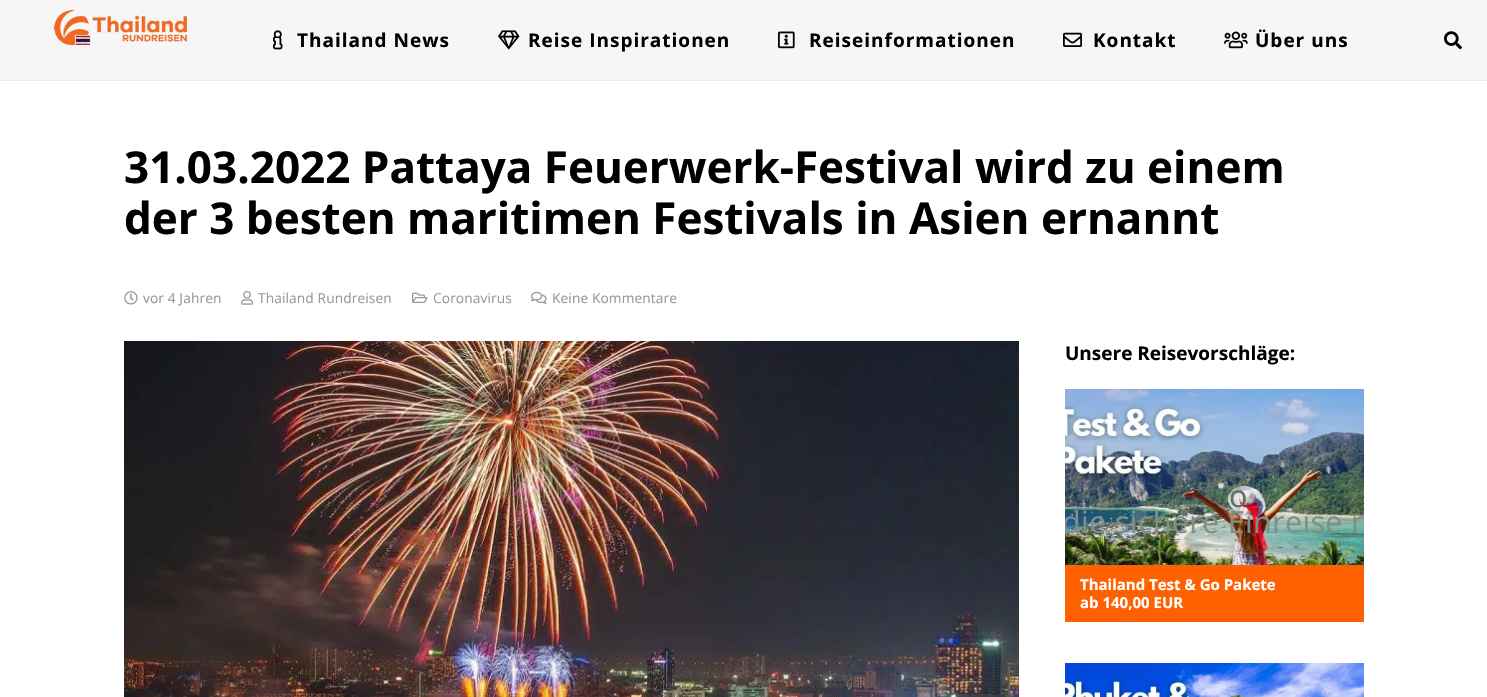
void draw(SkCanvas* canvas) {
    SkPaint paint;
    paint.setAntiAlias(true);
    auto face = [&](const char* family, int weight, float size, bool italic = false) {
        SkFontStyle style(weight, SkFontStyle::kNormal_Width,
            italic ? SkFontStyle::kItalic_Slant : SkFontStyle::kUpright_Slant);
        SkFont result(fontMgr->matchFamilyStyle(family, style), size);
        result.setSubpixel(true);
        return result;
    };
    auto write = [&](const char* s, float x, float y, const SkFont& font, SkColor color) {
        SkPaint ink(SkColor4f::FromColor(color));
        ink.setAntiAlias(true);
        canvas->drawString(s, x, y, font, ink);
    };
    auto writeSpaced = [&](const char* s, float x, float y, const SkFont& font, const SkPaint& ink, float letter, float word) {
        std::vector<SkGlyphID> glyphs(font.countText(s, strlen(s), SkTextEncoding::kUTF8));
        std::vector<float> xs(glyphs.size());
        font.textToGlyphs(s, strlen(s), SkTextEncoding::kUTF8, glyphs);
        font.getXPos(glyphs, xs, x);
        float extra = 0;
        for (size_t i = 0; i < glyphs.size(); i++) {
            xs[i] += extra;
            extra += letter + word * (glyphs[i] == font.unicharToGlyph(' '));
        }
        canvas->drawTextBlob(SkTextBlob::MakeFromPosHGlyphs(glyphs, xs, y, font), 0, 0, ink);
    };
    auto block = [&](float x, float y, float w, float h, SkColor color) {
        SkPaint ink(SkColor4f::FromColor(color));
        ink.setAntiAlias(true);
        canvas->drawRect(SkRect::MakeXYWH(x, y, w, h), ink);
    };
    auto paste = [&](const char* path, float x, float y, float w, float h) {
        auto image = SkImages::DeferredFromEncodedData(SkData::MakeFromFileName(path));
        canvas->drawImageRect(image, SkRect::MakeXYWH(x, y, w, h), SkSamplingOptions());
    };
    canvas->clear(SK_ColorWHITE);
    block(0, 80, 1487, 1, SkColorSetRGB(235, 235, 235));
    block(0, 0, 1487, 80, SkColorSetRGB(246, 246, 246));
    paste("pic1.png", 53, 10, 135, 35);
    paste("pic2.png", 273, 30, 10, 20);
    auto kFont1 = face("Open Sans", 700, 19);
    paint.setColor(SK_ColorBLACK);
    writeSpaced("Thailand News", 297, 47, kFont1, paint, 1, 0);
    paste("pic3.png", 498, 30, 22, 20);
    writeSpaced("Reise Inspirationen", 528, 47, kFont1, paint, 1, 0);
    paste("pic4.png", 778, 31, 17, 18);
    writeSpaced("Reiseinformationen", 809, 47, kFont1, paint, 1, 0);
    paste("pic5.png", 1063, 32, 19, 15);
    writeSpaced("Kontakt", 1093, 47, kFont1, paint, 1, 0);
    paste("pic6.png", 1224, 31, 24, 18);
    writeSpaced("Über uns", 1255, 47, kFont1, paint, 1, 0);
    paste("pic7.png", 1444, 31, 18, 19);
    auto kFont2 = face("Open Sans", 700, 44);
    write("31.03.2022 Pattaya Feuerwerk-Festival wird zu einem", 124, 183, kFont2, SK_ColorBLACK);
    write("der 3 besten maritimen Festivals in Asien ernannt", 124, 234, kFont2, SK_ColorBLACK);
    paste("pic8.png", 124, 291, 14, 14);
    auto kFont3 = face("Open Sans", 400, 13.75f);
    paint.setColor(SkColorSetRGB(153, 153, 153));
    writeSpaced("vor 4 Jahren", 143, 303, kFont3, paint, 0.1f, 0);
    paste("pic9.png", 241, 291, 12, 14);
    writeSpaced("Thailand Rundreisen", 258, 303, kFont3, paint, 0.1f, 0);
    paste("pic10.png", 412, 292, 16, 11);
    writeSpaced("Coronavirus", 433, 303, kFont3, paint, 0.1f, 0);
    paste("pic11.png", 531, 291, 16, 13);
    writeSpaced("Keine Kommentare", 552, 303, kFont3, paint, 0.1f, 0);
    paste("pic12.png", 124, 341, 895, 356);
    write("Unsere Reisevorschläge:", 1065, 360, kFont1, SK_ColorBLACK);
    paste("pic13.png", 1065, 389, 299, 176);
    auto kFont4 = face("Open Sans", 400, 30.6f);
    paint.setColor(SkColorSetRGB(96, 110, 102));
    writeSpaced("o", 1229, 507, kFont4, paint, 0.3f, 0);
    canvas->save();
    canvas->clipRect(SkRect::MakeXYWH(1065, 389, 299, 233));
    paint.setColor(SkColorSetRGB(127, 143, 136));
    writeSpaced("die sichere Einreise n", 1062, 533, kFont4, paint, 0.3f, 0);
    canvas->restore();
    block(1065, 565, 299, 57, SkColorSetRGB(255, 97, 0));
    auto kFont5 = face("Open Sans", 700, 15);
    write("Thailand Test & Go Pakete", 1080, 590, kFont5, SK_ColorWHITE);
    write("ab 140,00 EUR", 1080, 608, kFont5, SK_ColorWHITE);
    paste("pic14.png", 1065, 663, 299, 34);
}
